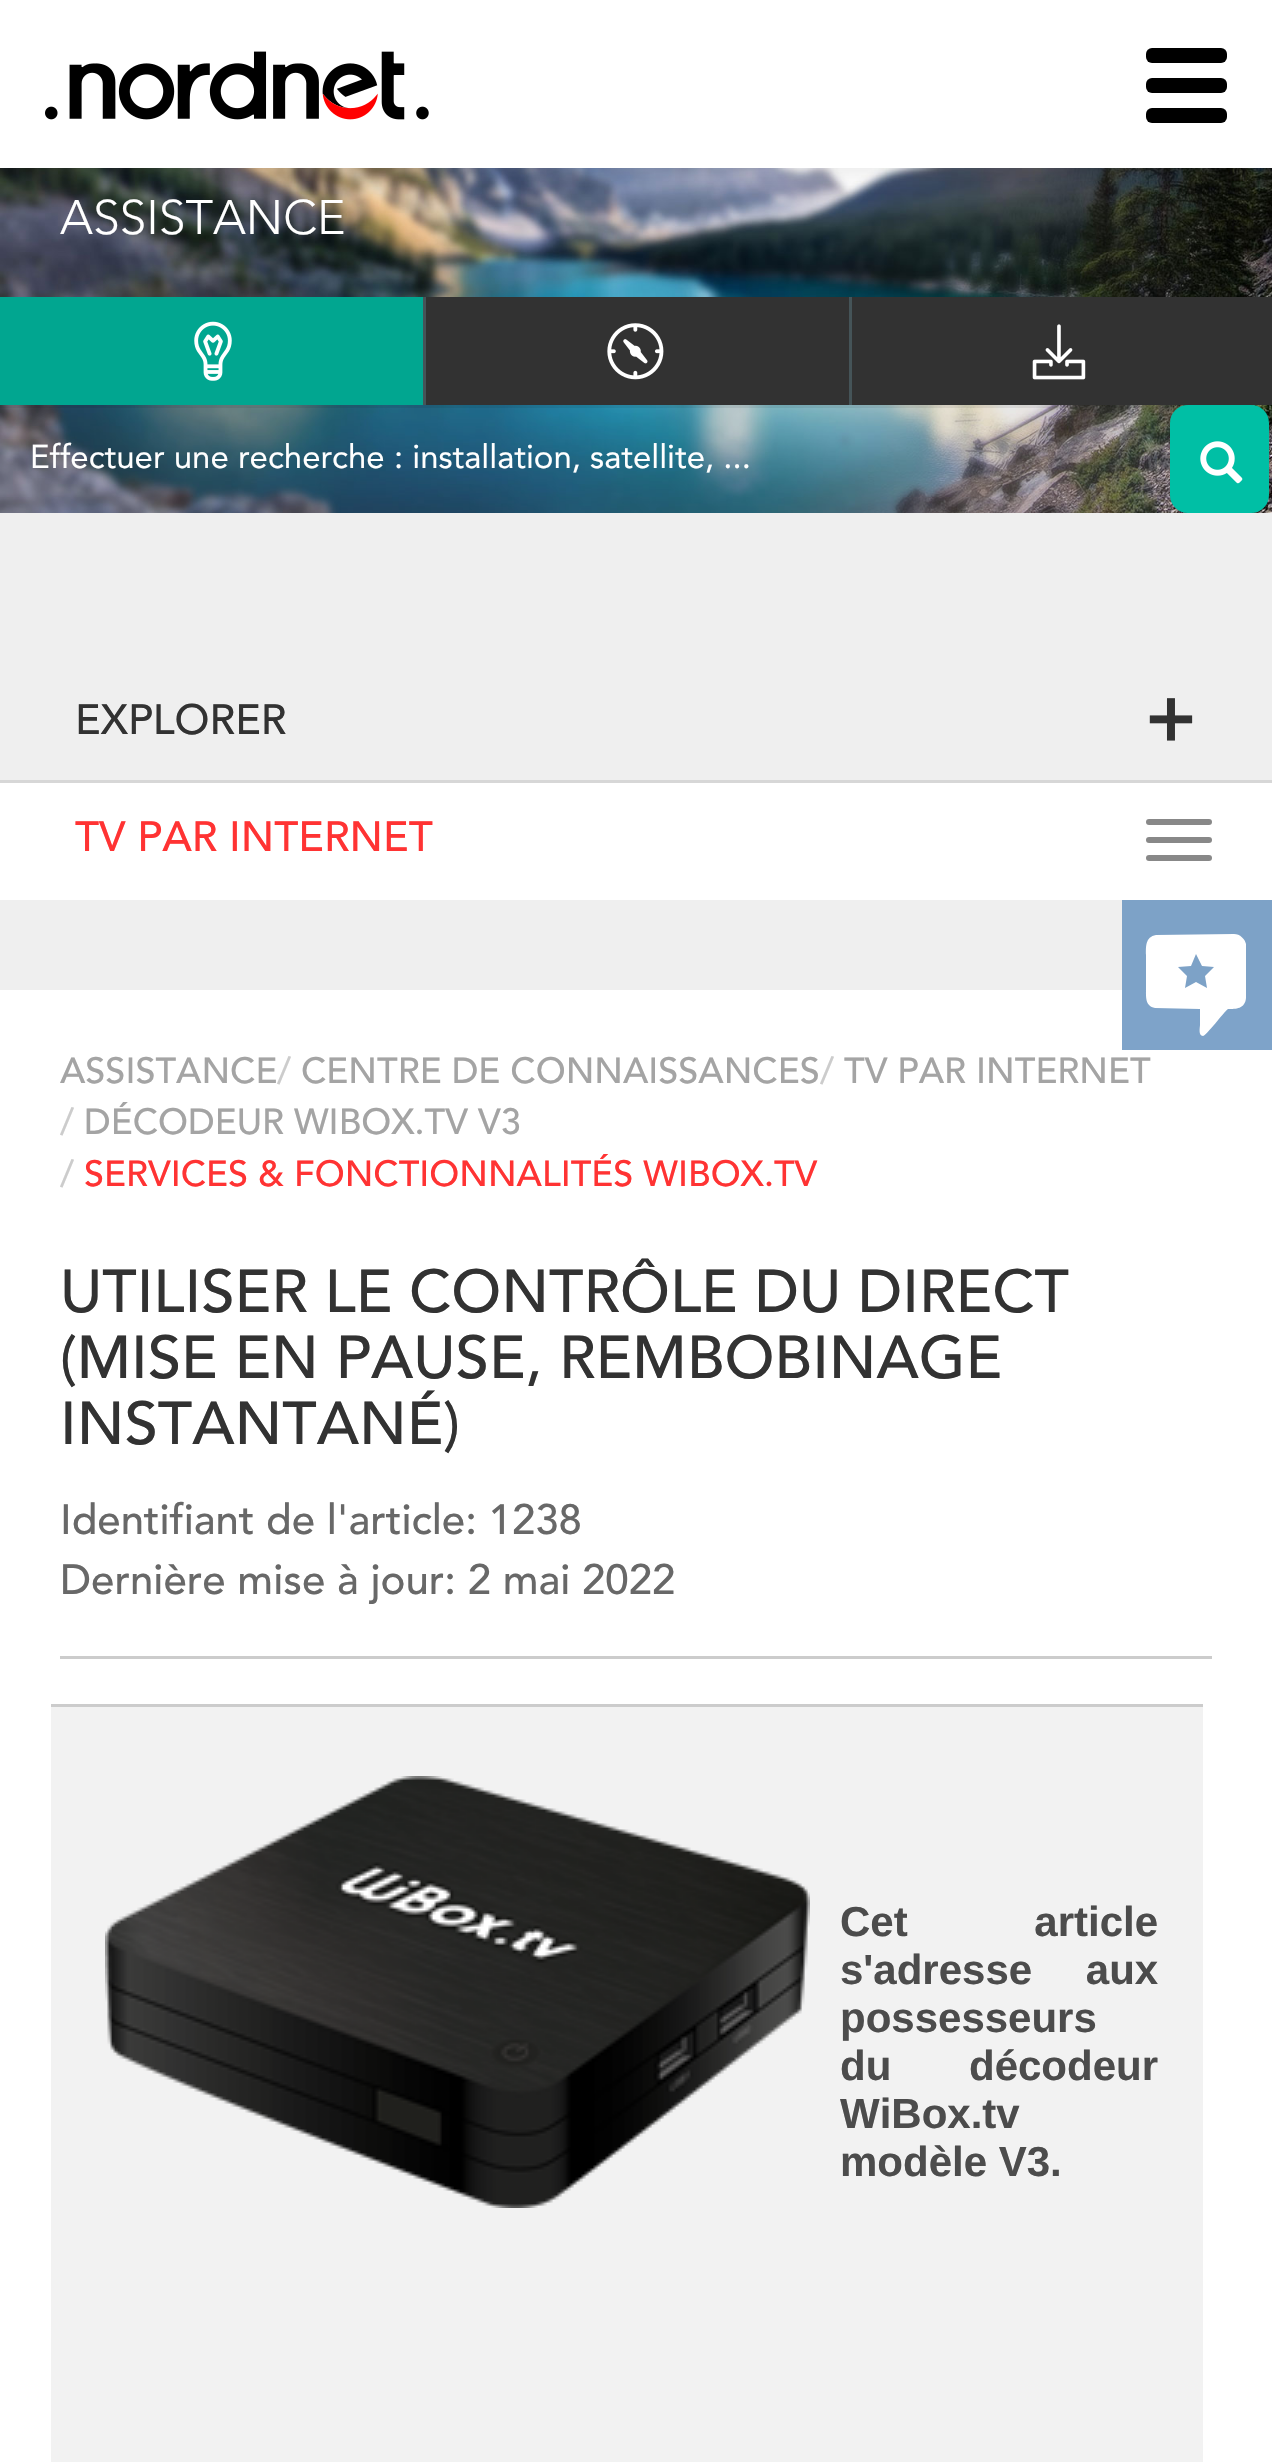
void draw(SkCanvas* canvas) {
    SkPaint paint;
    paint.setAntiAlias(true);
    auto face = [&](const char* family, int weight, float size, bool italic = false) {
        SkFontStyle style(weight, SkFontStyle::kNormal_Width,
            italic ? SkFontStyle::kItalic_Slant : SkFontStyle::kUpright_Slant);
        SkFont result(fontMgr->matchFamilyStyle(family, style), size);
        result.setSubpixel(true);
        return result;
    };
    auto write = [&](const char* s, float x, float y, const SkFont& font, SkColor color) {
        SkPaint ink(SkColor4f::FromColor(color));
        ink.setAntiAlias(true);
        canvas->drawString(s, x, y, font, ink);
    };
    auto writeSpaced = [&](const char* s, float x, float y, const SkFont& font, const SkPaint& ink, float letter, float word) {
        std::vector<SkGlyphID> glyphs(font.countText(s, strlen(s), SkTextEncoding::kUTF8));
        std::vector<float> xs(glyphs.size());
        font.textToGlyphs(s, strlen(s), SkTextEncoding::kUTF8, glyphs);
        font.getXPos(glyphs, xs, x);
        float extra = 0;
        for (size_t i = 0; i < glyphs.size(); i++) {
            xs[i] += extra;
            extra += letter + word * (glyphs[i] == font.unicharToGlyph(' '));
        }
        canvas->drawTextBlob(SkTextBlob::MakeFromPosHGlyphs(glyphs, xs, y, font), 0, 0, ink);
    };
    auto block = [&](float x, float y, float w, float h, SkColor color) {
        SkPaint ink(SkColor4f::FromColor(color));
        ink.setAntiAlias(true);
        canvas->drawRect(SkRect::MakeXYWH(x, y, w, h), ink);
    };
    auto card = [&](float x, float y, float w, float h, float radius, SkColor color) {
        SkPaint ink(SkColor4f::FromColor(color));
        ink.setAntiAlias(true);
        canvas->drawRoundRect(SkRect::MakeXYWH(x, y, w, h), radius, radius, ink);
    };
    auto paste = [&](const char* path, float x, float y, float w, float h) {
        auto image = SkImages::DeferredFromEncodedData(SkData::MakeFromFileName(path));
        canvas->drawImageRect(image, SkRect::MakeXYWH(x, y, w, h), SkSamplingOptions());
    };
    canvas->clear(SkColorSetRGB(239, 239, 239));
    block(1122, 900, 150, 90, SkColorSetRGB(125, 162, 199));
    paste("pic2.png", 0, 168, 1272, 345);
    paint.setColor(SkColorSetARGB(26, 0, 0, 0));
    paint.setMaskFilter(SkMaskFilter::MakeBlur(kNormal_SkBlurStyle, 15));
    canvas->drawRect(SkRect::MakeXYWH(0, 0, 1272, 168), paint);
    paint.setMaskFilter(nullptr);
    block(0, 0, 1272, 168, SK_ColorWHITE);
    paste("pic1.png", 45, 51, 384, 69);
    card(1146, 48, 81, 15, 6, SK_ColorBLACK);
    card(1146, 78, 81, 15, 6, SK_ColorBLACK);
    card(1146, 108, 81, 15, 6, SK_ColorBLACK);
    auto kFont1 = face("Avenir", 300, 48);
    write("ASSISTANCE", 60, 234, kFont1, SK_ColorWHITE);
    block(0, 297, 423, 108, SkColorSetRGB(1, 166, 144));
    paste("pic3.png", 194, 321, 38, 60);
    block(426, 297, 423, 108, SkColorSetRGB(50, 50, 50));
    block(423, 297, 3, 108, SkColorSetRGB(69, 84, 88));
    paste("pic4.png", 607, 323, 57, 57);
    block(852, 297, 420, 108, SkColorSetRGB(50, 50, 50));
    block(849, 297, 3, 108, SkColorSetRGB(69, 84, 88));
    paste("pic5.png", 1032, 324, 54, 56);
    block(0, 405, 1173, 108, SkColorSetARGB(51, 145, 145, 145));
    block(0, 405, 1173, 3, SkColorSetARGB(18, 0, 0, 0));
    auto kFont2 = face("Avenir", 400, 33);
    write("Effectuer une recherche : installation, satellite, ...", 30, 468, kFont2, SK_ColorWHITE);
    card(1170, 405, 99, 108, 18, SkColorSetRGB(0, 191, 165));
    paste("pic6.png", 1200, 441, 43, 43);
    block(0, 780, 1272, 3, SkColorSetRGB(215, 215, 215));
    auto kFont3 = face("Avenir", 500, 42);
    write("EXPLORER", 75, 734, kFont3, SkColorSetRGB(50, 50, 50));
    auto kFont4 = face("Avenir", 900, 78);
    write("+", 1145, 743, kFont4, SkColorSetRGB(50, 50, 50));
    block(0, 783, 1272, 117, SK_ColorWHITE);
    write("TV PAR INTERNET", 75, 851, kFont3, SkColorSetRGB(255, 51, 51));
    card(1146, 819, 66, 6, 3, SkColorSetRGB(136, 136, 136));
    card(1146, 837, 66, 6, 3, SkColorSetRGB(136, 136, 136));
    card(1146, 855, 66, 6, 3, SkColorSetRGB(136, 136, 136));
    block(0, 990, 1272, 1472, SK_ColorWHITE);
    block(1122, 990, 150, 60, SkColorSetRGB(126, 163, 201));
    paint.setColor(SK_ColorWHITE);
    canvas->drawPath(SkPathBuilder().moveTo(1234, 934).lineTo(1156, 935).cubicTo(1145, 937, 1146, 947, 1146, 955).lineTo(1146, 988).cubicTo(1146, 997, 1145, 1006, 1155, 1008).lineTo(1200, 1009).lineTo(1200, 1025).cubicTo(1200, 1027, 1198, 1036, 1203, 1036).cubicTo(1206, 1036, 1224, 1012, 1228, 1009).cubicTo(1236, 1009, 1245, 1009, 1246, 998).lineTo(1246, 944).cubicTo(1245, 939, 1240, 934, 1234, 934).close().moveTo(1207, 988).lineTo(1196, 982).lineTo(1185, 988).lineTo(1187, 976).lineTo(1178, 967).lineTo(1191, 966).lineTo(1196, 954).lineTo(1202, 966).lineTo(1214, 967).lineTo(1205, 976).close().detach(), paint);
    auto kFont5 = face("Avenir", 500, 36);
    write("ASSISTANCE", 60, 1083, kFont5, SkColorSetRGB(164, 164, 164));
    write("/", 277, 1083, kFont5, SkColorSetRGB(204, 204, 204));
    write("CENTRE DE CONNAISSANCES", 301, 1083, kFont5, SkColorSetRGB(164, 164, 164));
    write("/", 820, 1083, kFont5, SkColorSetRGB(204, 204, 204));
    write("TV PAR INTERNET", 844, 1083, kFont5, SkColorSetRGB(164, 164, 164));
    write("/", 60, 1134, kFont5, SkColorSetRGB(204, 204, 204));
    write("DÉCODEUR WIBOX.TV V3", 84, 1134, kFont5, SkColorSetRGB(164, 164, 164));
    write("/", 60, 1186, kFont5, SkColorSetRGB(204, 204, 204));
    write("SERVICES & FONCTIONNALITÉS WIBOX.TV", 84, 1186, kFont5, SkColorSetRGB(255, 51, 51));
    auto kFont6 = face("Avenir", 500, 60);
    write("UTILISER LE CONTRÔLE DU DIRECT", 60, 1312, kFont6, SkColorSetRGB(50, 50, 50));
    write("(MISE EN PAUSE, REMBOBINAGE", 60, 1378, kFont6, SkColorSetRGB(50, 50, 50));
    write("INSTANTANÉ)", 60, 1444, kFont6, SkColorSetRGB(50, 50, 50));
    write("Identifiant de l'article: 1238", 60, 1534, kFont3, SkColorSetRGB(104, 104, 104));
    write("Dernière mise à jour: 2 mai 2022", 60, 1594, kFont3, SkColorSetRGB(104, 104, 104));
    block(60, 1656, 1152, 3, SkColorSetRGB(204, 204, 204));
    block(51, 1707, 1152, 755, SkColorSetRGB(242, 242, 242));
    block(51, 1704, 1152, 3, SkColorSetRGB(204, 204, 204));
    paste("pic7.png", 105, 1776, 705, 432);
    auto kFont7 = face("Liberation Sans", 700, 42);
    paint.setColor(SkColorSetRGB(76, 76, 76));
    writeSpaced("Cet article", 840, 1936, kFont7, paint, 0, 115);
    writeSpaced("s'adresse aux", 840, 1984, kFont7, paint, 0, 42);
    write("possesseurs", 840, 2032, kFont7, SkColorSetRGB(76, 76, 76));
    writeSpaced("du décodeur", 840, 2080, kFont7, paint, 0, 66);
    write("WiBox.tv", 840, 2128, kFont7, SkColorSetRGB(76, 76, 76));
    write("modèle V3.", 840, 2176, kFont7, SkColorSetRGB(76, 76, 76));
}
